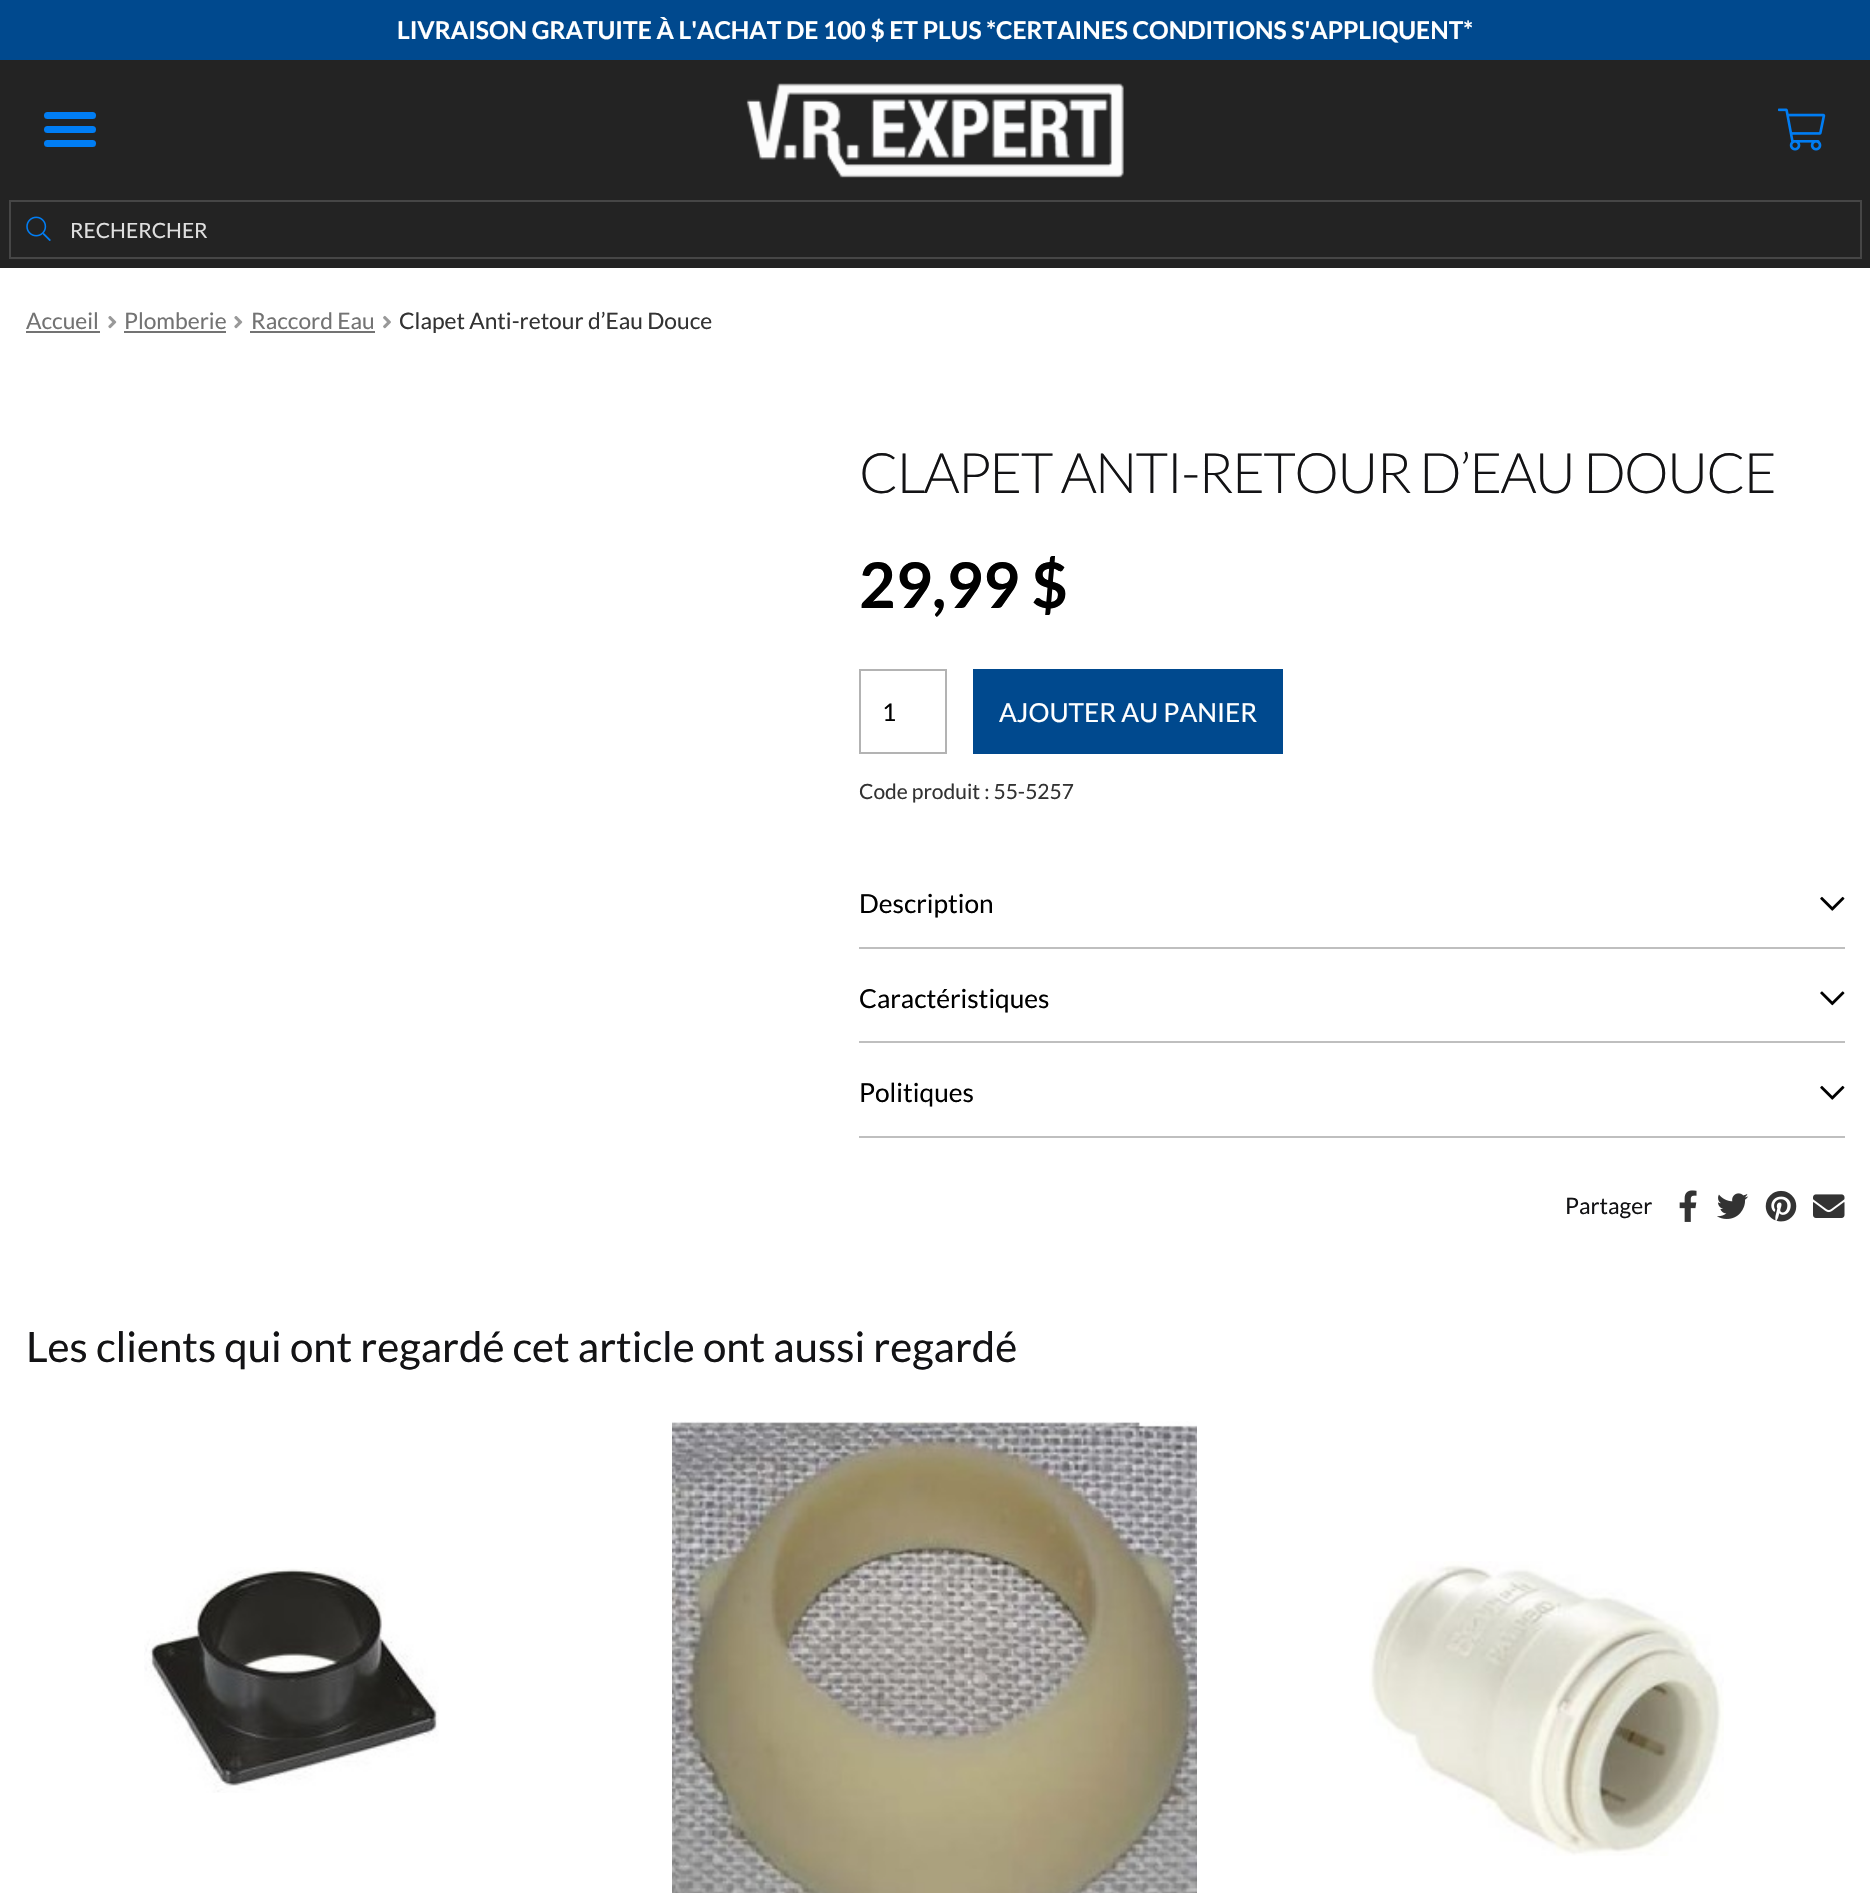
void draw(SkCanvas* canvas) {
    SkPaint paint;
    paint.setAntiAlias(true);
    auto face = [&](const char* family, int weight, float size, bool italic = false) {
        SkFontStyle style(weight, SkFontStyle::kNormal_Width,
            italic ? SkFontStyle::kItalic_Slant : SkFontStyle::kUpright_Slant);
        SkFont result(fontMgr->matchFamilyStyle(family, style), size);
        result.setSubpixel(true);
        return result;
    };
    auto write = [&](const char* s, float x, float y, const SkFont& font, SkColor color) {
        SkPaint ink(SkColor4f::FromColor(color));
        ink.setAntiAlias(true);
        canvas->drawString(s, x, y, font, ink);
    };
    auto writeSpaced = [&](const char* s, float x, float y, const SkFont& font, const SkPaint& ink, float letter, float word) {
        std::vector<SkGlyphID> glyphs(font.countText(s, strlen(s), SkTextEncoding::kUTF8));
        std::vector<float> xs(glyphs.size());
        font.textToGlyphs(s, strlen(s), SkTextEncoding::kUTF8, glyphs);
        font.getXPos(glyphs, xs, x);
        float extra = 0;
        for (size_t i = 0; i < glyphs.size(); i++) {
            xs[i] += extra;
            extra += letter + word * (glyphs[i] == font.unicharToGlyph(' '));
        }
        canvas->drawTextBlob(SkTextBlob::MakeFromPosHGlyphs(glyphs, xs, y, font), 0, 0, ink);
    };
    auto block = [&](float x, float y, float w, float h, SkColor color) {
        SkPaint ink(SkColor4f::FromColor(color));
        ink.setAntiAlias(true);
        canvas->drawRect(SkRect::MakeXYWH(x, y, w, h), ink);
    };
    auto card = [&](float x, float y, float w, float h, float radius, SkColor color) {
        SkPaint ink(SkColor4f::FromColor(color));
        ink.setAntiAlias(true);
        canvas->drawRoundRect(SkRect::MakeXYWH(x, y, w, h), radius, radius, ink);
    };
    auto paste = [&](const char* path, float x, float y, float w, float h) {
        auto image = SkImages::DeferredFromEncodedData(SkData::MakeFromFileName(path));
        canvas->drawImageRect(image, SkRect::MakeXYWH(x, y, w, h), SkSamplingOptions());
    };
    canvas->clear(SK_ColorWHITE);
    block(0, 60, 1870, 208, SkColorSetRGB(35, 35, 35));
    block(0, 0, 1870, 60, SkColorSetRGB(0, 73, 142));
    auto kFont1 = face("Lato", 700, 24.5f);
    write("LIVRAISON GRATUITE À L'ACHAT DE 100 $ ET PLUS *CERTAINES CONDITIONS S'APPLIQUENT*", 397, 39, kFont1, SK_ColorWHITE);
    card(44, 126, 52, 7, 3.5f, SkColorSetRGB(0, 125, 244));
    card(44, 112, 52, 7, 3.5f, SkColorSetRGB(0, 125, 244));
    card(44, 140, 52, 7, 3.5f, SkColorSetRGB(0, 125, 244));
    paste("pic1.png", 746, 83, 378, 95);
    paste("pic2.png", 1778, 108, 48, 43);
    paint.setStyle(SkPaint::kStroke_Style);
    paint.setStrokeWidth(2);
    paint.setColor(SkColorSetRGB(70, 70, 70));
    canvas->drawRect(SkRect::MakeXYWH(10, 201, 1851, 57), paint);
    paste("pic3.png", 26, 216, 25, 25);
    auto kFont2 = face("Lato", 400, 21);
    write("RECHERCHER", 70, 238, kFont2, SkColorSetRGB(223, 223, 223));
    auto kFont3 = face("Lato", 400, 22.75f);
    write("Accueil", 26, 329, kFont3, SkColorSetRGB(115, 115, 115));
    block(26, 331, 74, 2, SkColorSetRGB(115, 115, 115));
    paste("pic4.png", 108, 316, 9, 13);
    write("Plomberie", 124, 329, kFont3, SkColorSetRGB(115, 115, 115));
    block(124, 331, 102, 2, SkColorSetRGB(115, 115, 115));
    paste("pic4.png", 234, 316, 9, 13);
    write("Raccord Eau", 251, 329, kFont3, SkColorSetRGB(115, 115, 115));
    block(250, 331, 125, 2, SkColorSetRGB(115, 115, 115));
    paste("pic5.png", 383, 315, 8, 14);
    write("Clapet Anti-retour d’Eau Douce", 399, 329, kFont3, SkColorSetRGB(51, 51, 51));
    auto kFont4 = face("Lato", 300, 56);
    paint.setStyle(SkPaint::kFill_Style);
    paint.setColor(SkColorSetRGB(19, 19, 21));
    writeSpaced("CLAPET ANTI-RETOUR D’EAU DOUCE", 859, 493, kFont4, paint, -1.75f, 0);
    auto kFont5 = face("Lato", 700, 63);
    write("29,99 $", 859, 608, kFont5, SK_ColorBLACK);
    paint.setStyle(SkPaint::kStroke_Style);
    paint.setColor(SkColorSetRGB(179, 179, 179));
    canvas->drawRect(SkRect::MakeXYWH(860, 670, 86, 83), paint);
    auto kFont6 = face("Lato", 400, 24.5f);
    write("1", 882, 721, kFont6, SK_ColorBLACK);
    block(973, 669, 310, 85, SkColorSetRGB(0, 73, 142));
    auto kFont7 = face("Lato", 400, 26.25f);
    write("AJOUTER AU PANIER", 999, 722, kFont7, SK_ColorWHITE);
    write("Code produit : 55-5257", 859, 799, kFont2, SkColorSetRGB(51, 51, 51));
    block(859, 947, 986, 2, SkColorSetRGB(191, 191, 191));
    write("Description", 859, 913, kFont7, SK_ColorBLACK);
    paste("pic6.png", 1820, 896, 25, 15);
    block(859, 1041, 986, 2, SkColorSetRGB(191, 191, 191));
    write("Caractéristiques", 859, 1008, kFont7, SK_ColorBLACK);
    paste("pic7.png", 1820, 991, 25, 15);
    block(859, 1136, 986, 2, SkColorSetRGB(191, 191, 191));
    write("Politiques", 859, 1102, kFont7, SK_ColorBLACK);
    paste("pic6.png", 1820, 1085, 25, 15);
    write("Partager", 1565, 1214, kFont3, SkColorSetRGB(19, 19, 21));
    paste("pic8.png", 1679, 1190, 18, 32);
    paste("pic9.png", 1717, 1193, 32, 26);
    paste("pic10.png", 1765, 1190, 32, 32);
    paste("pic11.png", 1813, 1194, 32, 24);
    auto kFont8 = face("Lato", 400, 42);
    write("Les clients qui ont regardé cet article ont aussi regardé", 26, 1362, kFont8, SkColorSetRGB(19, 19, 21));
    paste("pic12.png", 144, 1567, 295, 226);
    paste("pic13.png", 672, 1421, 525, 472);
    paste("pic14.png", 1369, 1561, 355, 295);
}
